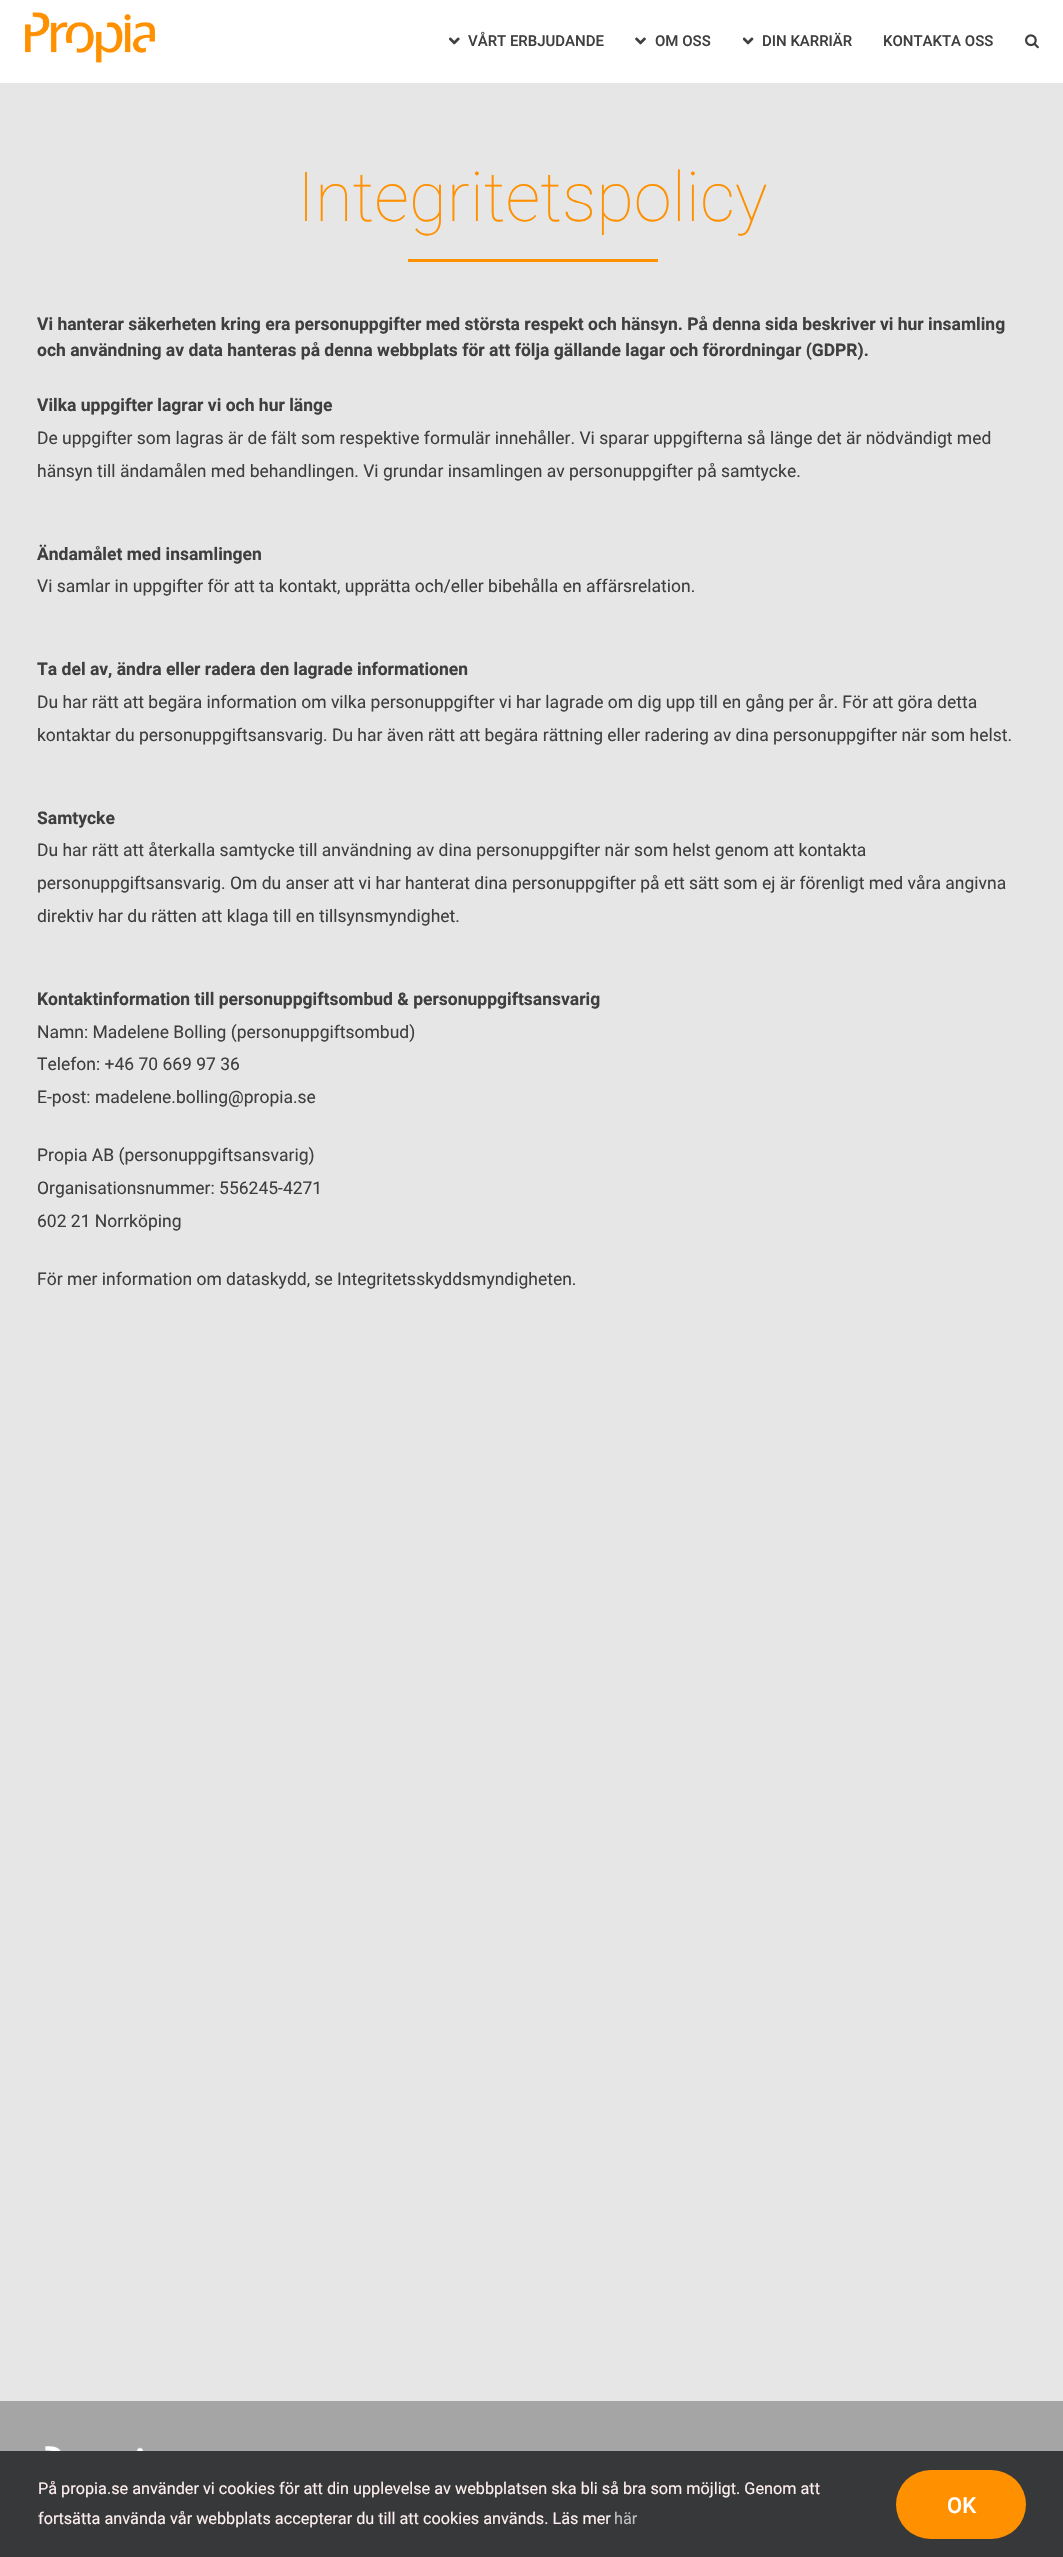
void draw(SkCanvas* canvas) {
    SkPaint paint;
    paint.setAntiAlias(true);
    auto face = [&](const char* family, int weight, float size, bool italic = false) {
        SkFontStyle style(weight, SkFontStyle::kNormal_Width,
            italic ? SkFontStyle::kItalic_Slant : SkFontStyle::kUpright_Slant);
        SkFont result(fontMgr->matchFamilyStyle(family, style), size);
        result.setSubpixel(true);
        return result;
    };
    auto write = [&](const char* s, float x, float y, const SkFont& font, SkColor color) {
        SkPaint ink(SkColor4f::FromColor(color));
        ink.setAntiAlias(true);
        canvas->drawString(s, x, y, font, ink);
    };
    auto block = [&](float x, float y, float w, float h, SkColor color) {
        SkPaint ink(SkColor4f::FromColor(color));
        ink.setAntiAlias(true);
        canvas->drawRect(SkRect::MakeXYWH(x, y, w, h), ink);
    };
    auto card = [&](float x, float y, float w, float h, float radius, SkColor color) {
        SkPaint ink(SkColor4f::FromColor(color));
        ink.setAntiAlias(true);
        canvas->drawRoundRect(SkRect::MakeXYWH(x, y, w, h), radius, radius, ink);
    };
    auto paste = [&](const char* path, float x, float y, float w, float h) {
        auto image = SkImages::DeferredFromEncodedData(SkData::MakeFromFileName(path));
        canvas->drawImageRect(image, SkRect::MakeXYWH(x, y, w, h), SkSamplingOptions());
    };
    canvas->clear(SkColorSetRGB(230, 230, 230));
    block(0, 0, 1063, 83, SK_ColorWHITE);
    paste("pic1.png", 25, 12, 130, 51);
    paste("pic2.png", 449, 37, 11, 8);
    auto kFont1 = face("Roboto", 500, 15);
    write("VÅRT ERBJUDANDE", 468, 46, kFont1, SkColorSetRGB(63, 63, 63));
    paste("pic3.png", 635, 37, 11, 8);
    write("OM OSS", 655, 46, kFont1, SkColorSetRGB(63, 63, 63));
    paste("pic4.png", 743, 37, 11, 8);
    write("DIN KARRIÄR", 762, 46, kFont1, SkColorSetRGB(63, 63, 63));
    write("KONTAKTA OSS", 883, 46, kFont1, SkColorSetRGB(63, 63, 63));
    paste("pic5.png", 1025, 34, 14, 15);
    auto kFont2 = face("Roboto", 100, 68.75f);
    write("Integritetspolicy", 297, 221, kFont2, SkColorSetRGB(255, 144, 0));
    block(408, 259, 250, 3, SkColorSetRGB(255, 144, 0));
    auto kFont3 = face("Roboto", 700, 17.5f);
    write("Vi hanterar säkerheten kring era personuppgifter med största respekt och hänsyn. På denna sida beskriver vi hur insamling", 37, 330, kFont3, SkColorSetRGB(63, 63, 63));
    write("och användning av data hanteras på denna webbplats för att följa gällande lagar och förordningar (GDPR).", 37, 356, kFont3, SkColorSetRGB(63, 63, 63));
    write("Vilka uppgifter lagrar vi och hur länge", 37, 411, kFont3, SkColorSetRGB(63, 63, 63));
    auto kFont4 = face("Roboto", 400, 17.5f);
    write("De uppgifter som lagras är de fält som respektive formulär innehåller. Vi sparar uppgifterna så länge det är nödvändigt med", 37, 444, kFont4, SkColorSetRGB(63, 63, 63));
    write("hänsyn till ändamålen med behandlingen. Vi grundar insamlingen av personuppgifter på samtycke.", 37, 477, kFont4, SkColorSetRGB(63, 63, 63));
    write("Ändamålet med insamlingen", 37, 560, kFont3, SkColorSetRGB(63, 63, 63));
    write("Vi samlar in uppgifter för att ta kontakt, upprätta och/eller bibehålla en affärsrelation.", 37, 592, kFont4, SkColorSetRGB(63, 63, 63));
    write("Ta del av, ändra eller radera den lagrade informationen", 37, 675, kFont3, SkColorSetRGB(63, 63, 63));
    write("Du har rätt att begära information om vilka personuppgifter vi har lagrade om dig upp till en gång per år. För att göra detta", 37, 708, kFont4, SkColorSetRGB(63, 63, 63));
    write("kontaktar du personuppgiftsansvarig. Du har även rätt att begära rättning eller radering av dina personuppgifter när som helst.", 37, 741, kFont4, SkColorSetRGB(63, 63, 63));
    write("Samtycke", 37, 824, kFont3, SkColorSetRGB(63, 63, 63));
    write("Du har rätt att återkalla samtycke till användning av dina personuppgifter när som helst genom att kontakta", 37, 856, kFont4, SkColorSetRGB(63, 63, 63));
    write("personuppgiftsansvarig. Om du anser att vi har hanterat dina personuppgifter på ett sätt som ej är förenligt med våra angivna", 37, 889, kFont4, SkColorSetRGB(63, 63, 63));
    write("direktiv har du rätten att klaga till en tillsynsmyndighet.", 37, 922, kFont4, SkColorSetRGB(63, 63, 63));
    write("Kontaktinformation till personuppgiftsombud & personuppgiftsansvarig", 37, 1005, kFont3, SkColorSetRGB(63, 63, 63));
    write("Namn: Madelene Bolling (personuppgiftsombud)", 37, 1038, kFont4, SkColorSetRGB(63, 63, 63));
    write("Telefon: +46 70 669 97 36", 37, 1070, kFont4, SkColorSetRGB(63, 63, 63));
    write("E-post: madelene.bolling@propia.se", 37, 1103, kFont4, SkColorSetRGB(63, 63, 63));
    write("Propia AB (personuppgiftsansvarig)", 37, 1161, kFont4, SkColorSetRGB(63, 63, 63));
    write("Organisationsnummer: 556245-4271", 37, 1194, kFont4, SkColorSetRGB(63, 63, 63));
    write("602 21 Norrköping", 37, 1227, kFont4, SkColorSetRGB(63, 63, 63));
    write("För mer information om dataskydd, se Integritetsskyddsmyndigheten.", 37, 1285, kFont4, SkColorSetRGB(63, 63, 63));
    block(0, 2401, 1063, 50, SkColorSetRGB(165, 165, 165));
    paste("pic6.png", 45, 2446, 99, 5);
    block(0, 2451, 1063, 106, SkColorSetRGB(54, 56, 57));
    auto kFont5 = face("Roboto", 400, 16.25f);
    write("På propia.se använder vi cookies för att din upplevelse av webbplatsen ska bli så bra som möjligt. Genom att", 38, 2494, kFont5, SkColorSetRGB(255, 239, 239));
    write("fortsätta använda vår webbplats accepterar du till att cookies används. Läs mer", 38, 2524, kFont5, SkColorSetRGB(255, 239, 239));
    write("här", 614, 2524, kFont5, SkColorSetRGB(191, 191, 191));
    card(896, 2470, 130, 69, 34.5f, SkColorSetRGB(255, 144, 0));
    auto kFont6 = face("Roboto", 500, 22);
    write("OK", 947, 2513, kFont6, SK_ColorWHITE);
}
